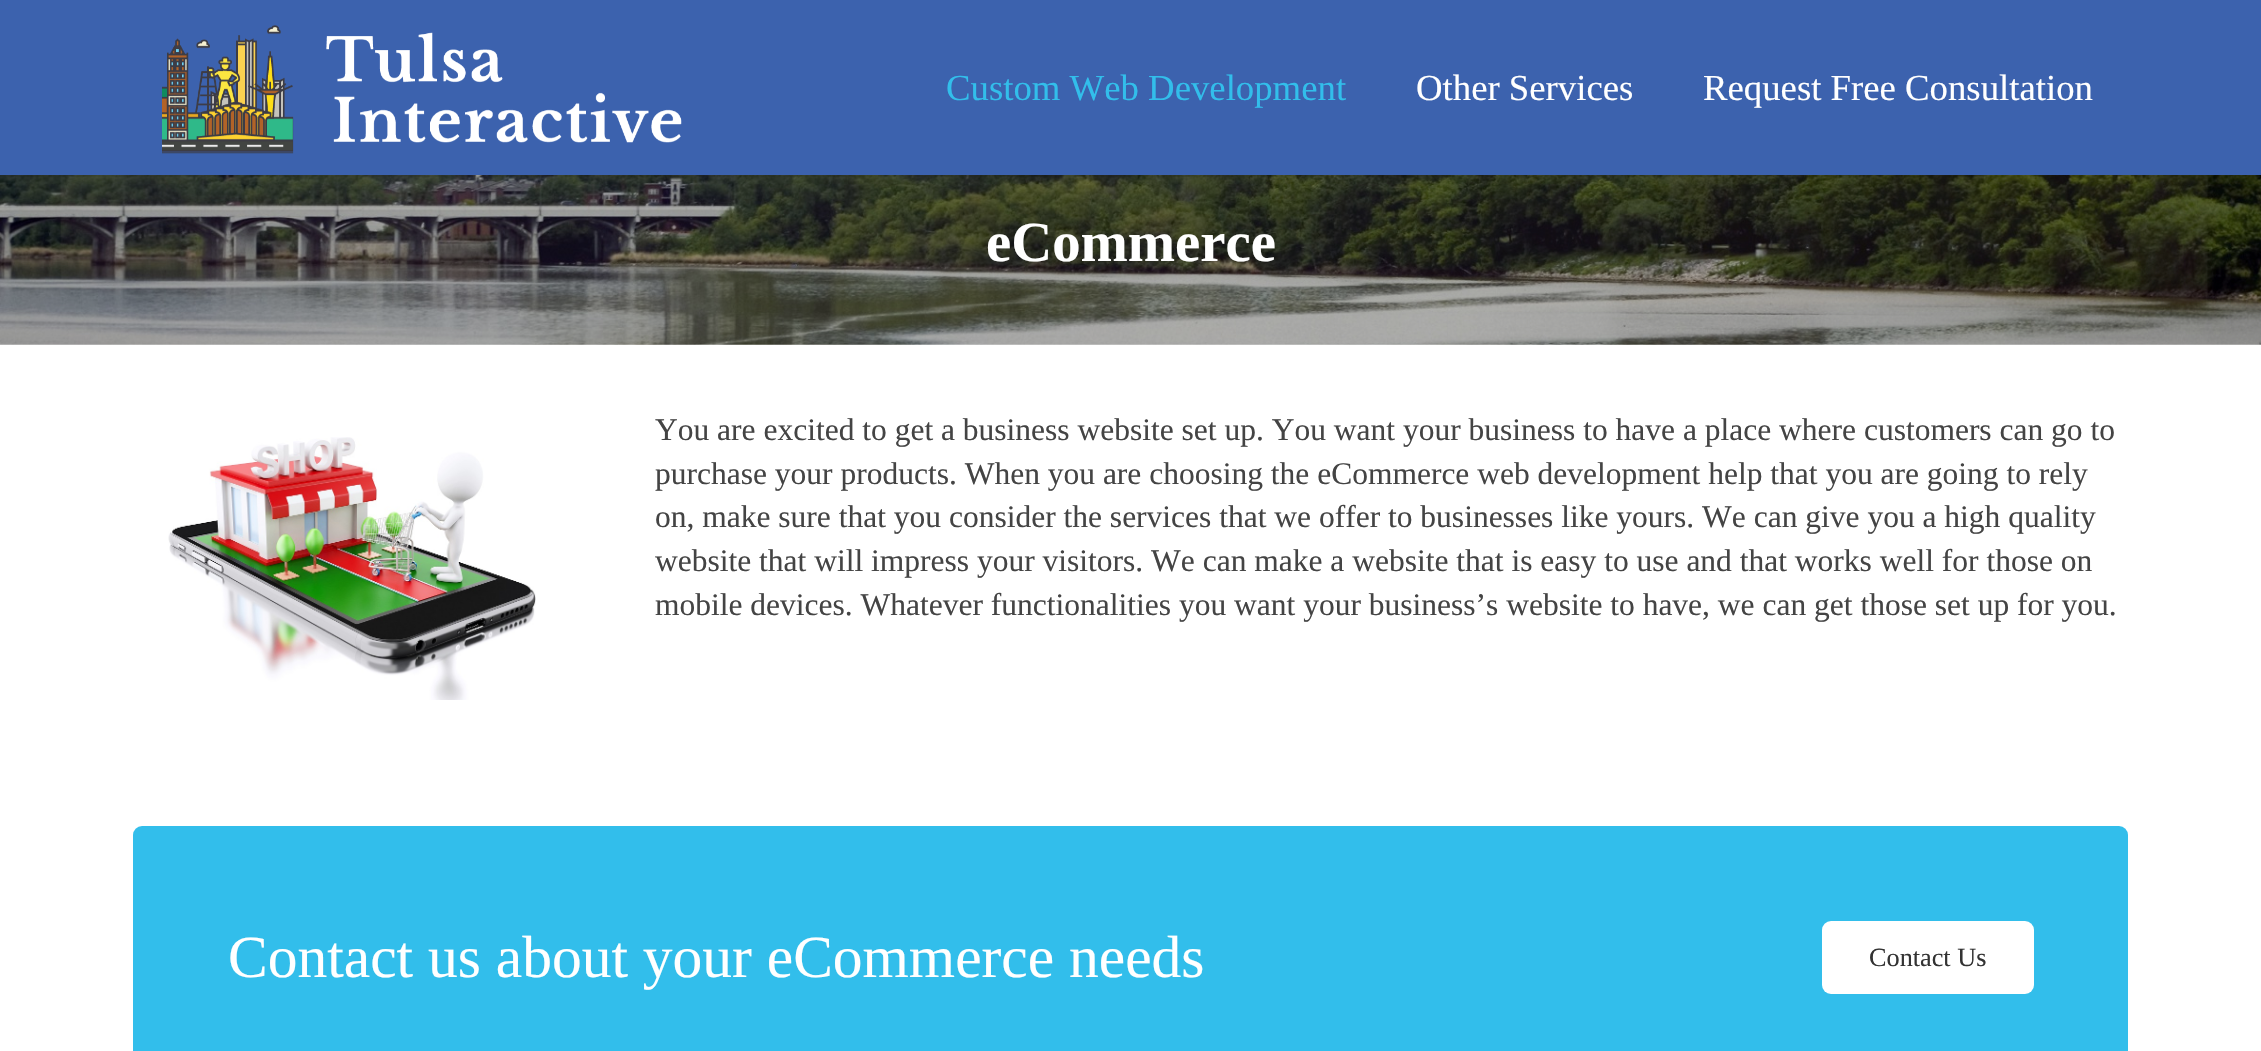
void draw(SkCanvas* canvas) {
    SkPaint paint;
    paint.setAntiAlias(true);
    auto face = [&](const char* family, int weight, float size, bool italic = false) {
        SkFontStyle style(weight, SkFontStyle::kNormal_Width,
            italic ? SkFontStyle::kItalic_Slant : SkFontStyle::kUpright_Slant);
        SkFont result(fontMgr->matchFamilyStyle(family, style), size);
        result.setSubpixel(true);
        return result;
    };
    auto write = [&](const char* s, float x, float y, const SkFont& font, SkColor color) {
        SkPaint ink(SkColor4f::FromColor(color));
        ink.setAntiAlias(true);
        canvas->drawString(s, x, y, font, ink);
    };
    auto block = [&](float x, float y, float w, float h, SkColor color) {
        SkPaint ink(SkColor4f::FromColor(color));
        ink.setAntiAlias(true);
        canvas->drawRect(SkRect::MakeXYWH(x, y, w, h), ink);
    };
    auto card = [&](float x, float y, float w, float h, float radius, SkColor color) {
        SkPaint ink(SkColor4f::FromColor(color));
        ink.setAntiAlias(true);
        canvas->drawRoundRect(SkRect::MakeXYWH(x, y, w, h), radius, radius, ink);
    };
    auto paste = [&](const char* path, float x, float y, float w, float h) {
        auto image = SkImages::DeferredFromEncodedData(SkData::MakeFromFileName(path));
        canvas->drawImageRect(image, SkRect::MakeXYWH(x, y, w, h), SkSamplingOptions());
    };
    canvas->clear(SK_ColorWHITE);
    paste("pic2.png", 0, 175, 2261, 170);
    block(0, 175, 2261, 2, SkColorSetARGB(20, 0, 0, 0));
    block(0, 0, 2261, 175, SkColorSetRGB(60, 98, 174));
    paste("pic1.png", 162, 25, 520, 129);
    auto kFont1 = face("Liberation Serif", 400, 36.75f);
    write("Custom Web Development", 946, 100, kFont1, SkColorSetRGB(50, 190, 235));
    write("Other Services", 1416, 100, kFont1, SK_ColorWHITE);
    write("Request Free Consultation", 1703, 100, kFont1, SK_ColorWHITE);
    auto kFont2 = face("Liberation Serif", 700, 56.75f);
    write("eCommerce", 986, 261, kFont2, SK_ColorWHITE);
    paste("pic3.png", 168, 437, 368, 263);
    auto kFont3 = face("Liberation Serif", 400, 31.5f);
    write("You are excited to get a business website set up. You want your business to have a place where customers can go to", 655, 440, kFont3, SkColorSetRGB(68, 68, 68));
    write("purchase your products. When you are choosing the eCommerce web development help that you are going to rely", 655, 484, kFont3, SkColorSetRGB(68, 68, 68));
    write("on, make sure that you consider the services that we offer to businesses like yours. We can give you a high quality", 655, 527, kFont3, SkColorSetRGB(68, 68, 68));
    write("website that will impress your visitors. We can make a website that is easy to use and that works well for those on", 655, 571, kFont3, SkColorSetRGB(68, 68, 68));
    write("mobile devices. Whatever functionalities you want your business’s website to have, we can get those set up for you.", 655, 615, kFont3, SkColorSetRGB(68, 68, 68));
    card(133, 826, 1995, 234, 9, SkColorSetRGB(50, 190, 235));
    auto kFont4 = face("Liberation Serif", 400, 59.5f);
    write("Contact us about your eCommerce needs", 228, 977, kFont4, SK_ColorWHITE);
    card(1822, 921, 212, 73, 9, SK_ColorWHITE);
    auto kFont5 = face("Liberation Serif", 400, 26.25f);
    write("Contact Us", 1869, 966, kFont5, SkColorSetRGB(51, 51, 51));
}
